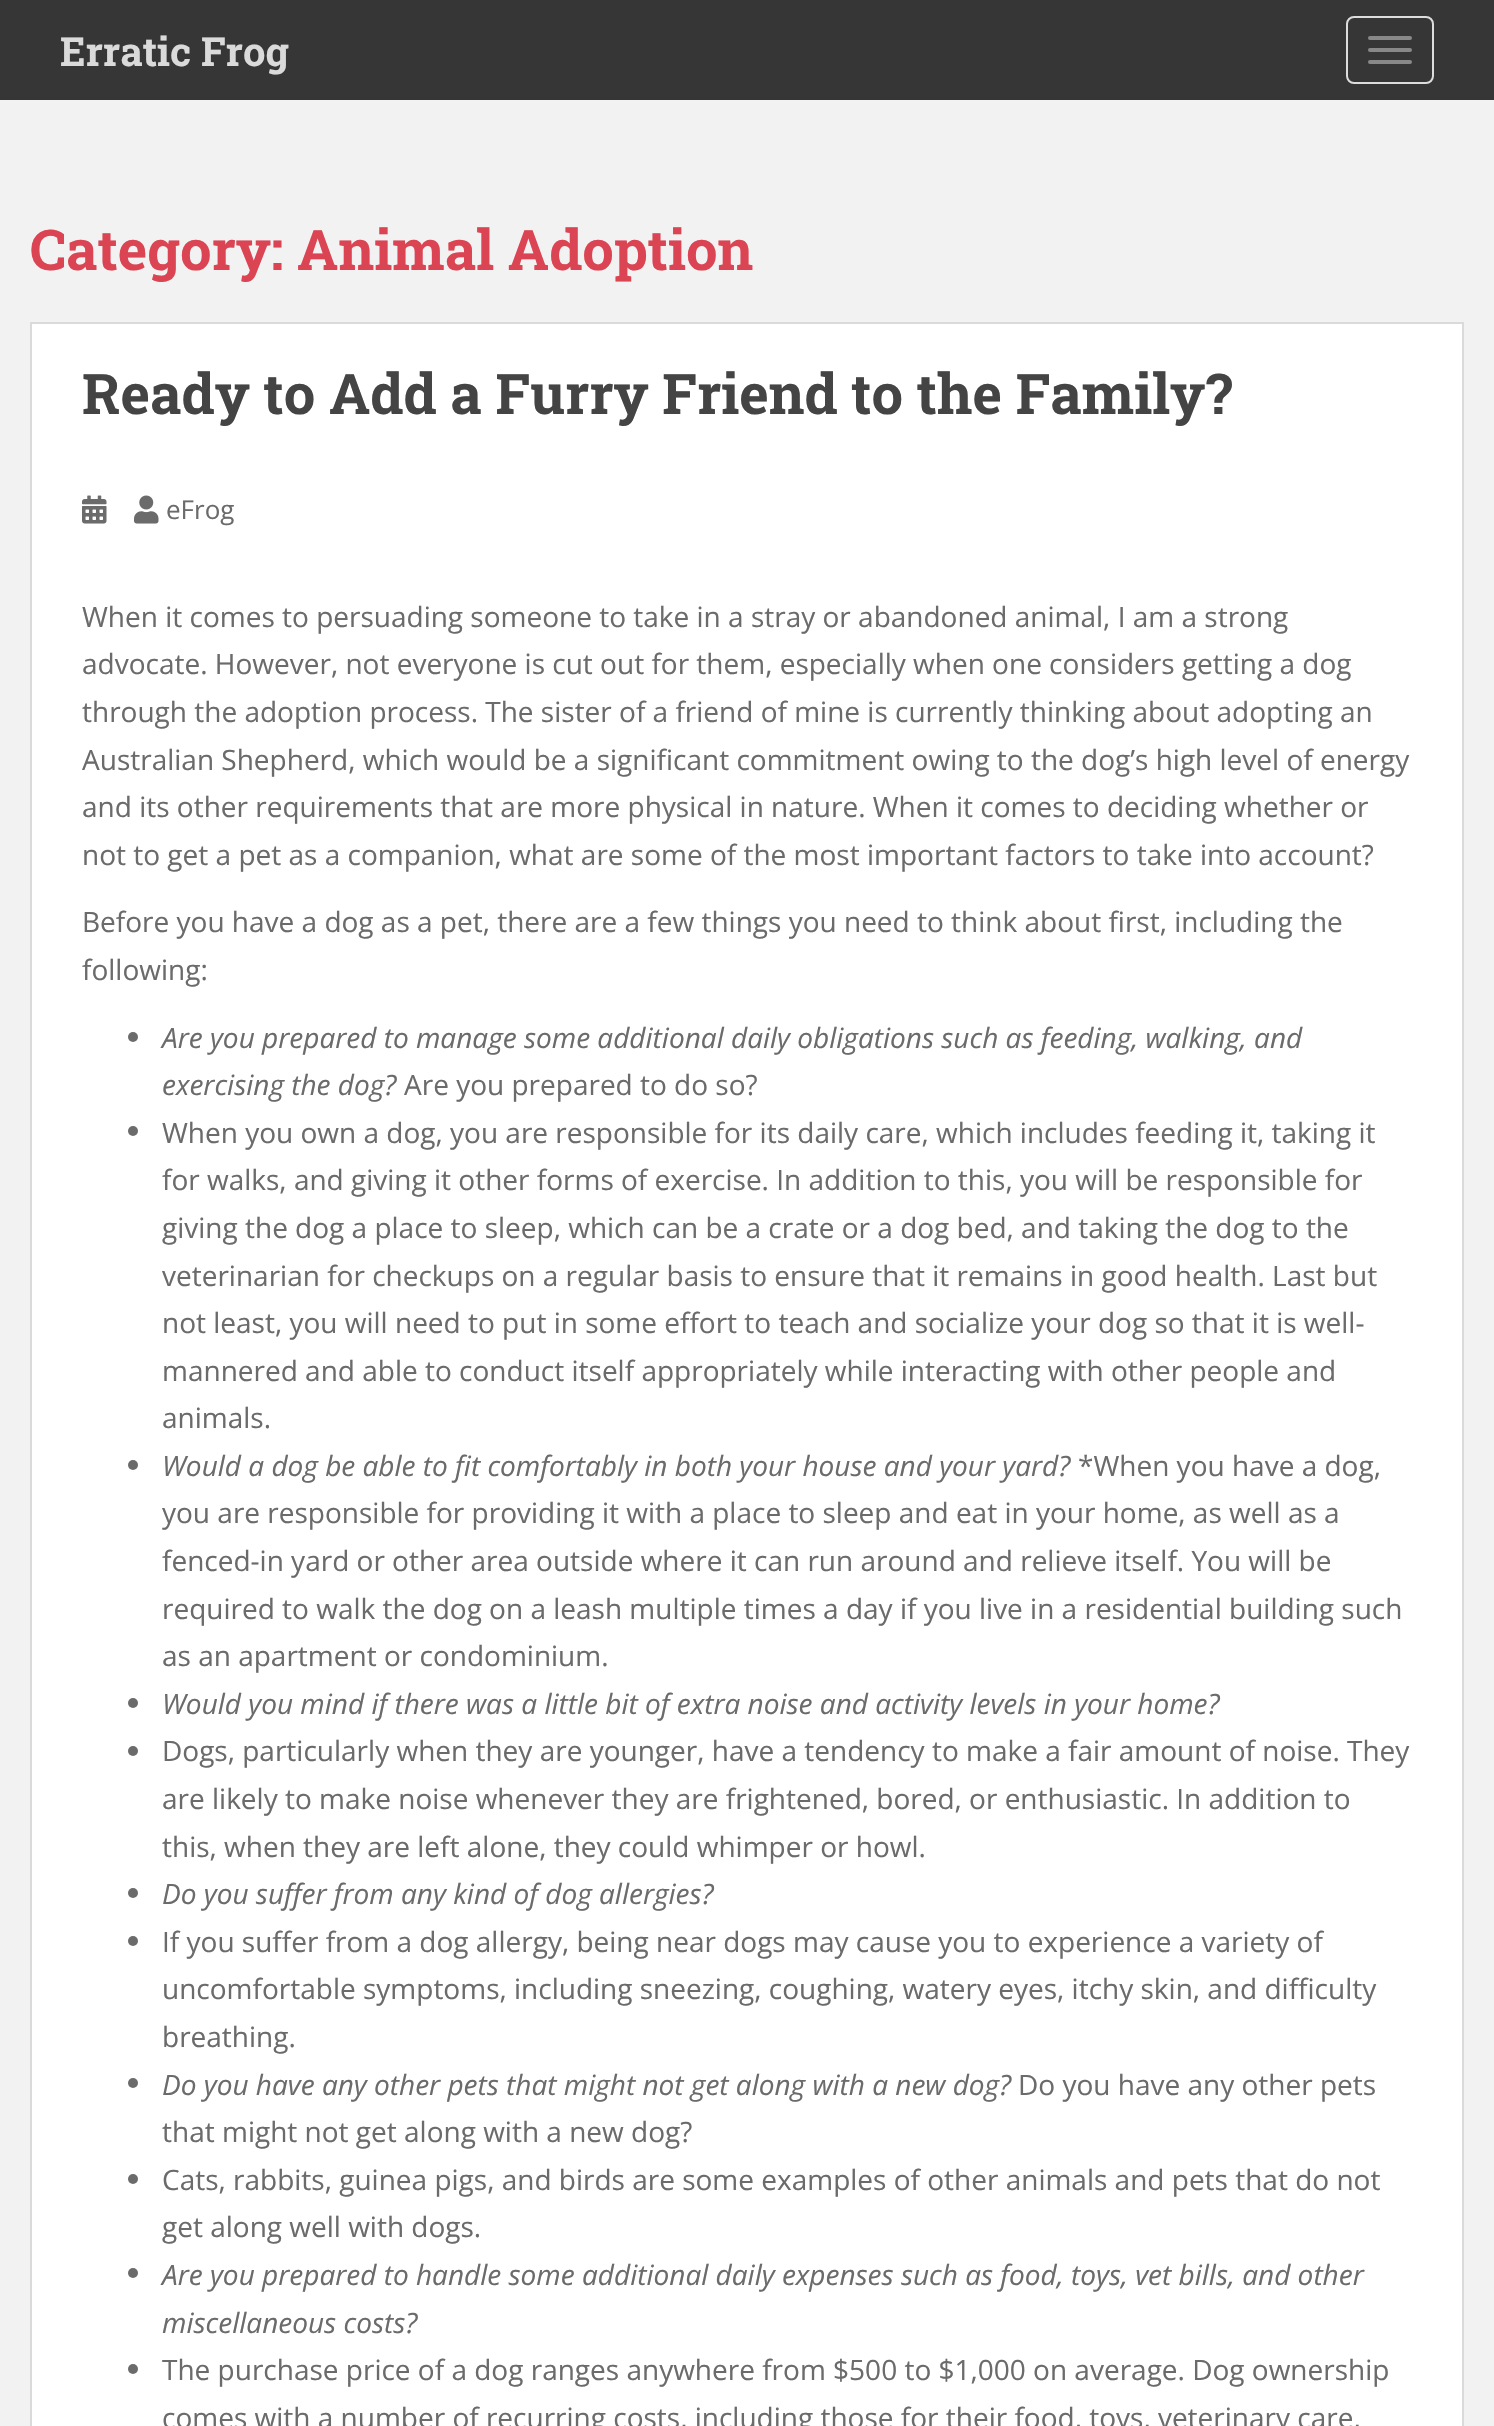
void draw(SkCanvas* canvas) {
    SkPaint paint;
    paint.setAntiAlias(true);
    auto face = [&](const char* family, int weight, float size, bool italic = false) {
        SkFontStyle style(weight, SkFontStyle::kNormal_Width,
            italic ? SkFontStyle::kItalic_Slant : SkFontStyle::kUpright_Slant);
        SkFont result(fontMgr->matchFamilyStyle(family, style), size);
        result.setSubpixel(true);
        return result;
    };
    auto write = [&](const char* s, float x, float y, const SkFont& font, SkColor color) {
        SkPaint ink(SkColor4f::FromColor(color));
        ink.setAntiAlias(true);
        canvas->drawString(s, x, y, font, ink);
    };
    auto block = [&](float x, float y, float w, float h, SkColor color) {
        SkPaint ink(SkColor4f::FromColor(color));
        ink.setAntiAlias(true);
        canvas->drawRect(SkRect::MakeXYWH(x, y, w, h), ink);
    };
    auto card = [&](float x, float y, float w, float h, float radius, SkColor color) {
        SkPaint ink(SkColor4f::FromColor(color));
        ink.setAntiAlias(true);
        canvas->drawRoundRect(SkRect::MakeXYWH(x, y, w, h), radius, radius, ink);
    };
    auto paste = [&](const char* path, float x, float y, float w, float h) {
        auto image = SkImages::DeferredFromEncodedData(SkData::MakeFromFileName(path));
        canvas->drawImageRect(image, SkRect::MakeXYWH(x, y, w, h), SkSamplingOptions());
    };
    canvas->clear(SkColorSetRGB(242, 242, 242));
    block(0, 0, 1494, 100, SkColorSetRGB(54, 54, 54));
    auto kFont1 = face("Roboto Slab", 700, 40);
    write("Erratic Frog", 60, 66, kFont1, SkColorSetRGB(218, 218, 218));
    paint.setStyle(SkPaint::kStroke_Style);
    paint.setStrokeWidth(2);
    paint.setColor(SkColorSetRGB(221, 221, 221));
    canvas->drawRoundRect(SkRect::MakeXYWH(1347, 17, 86, 66), 7, 7, paint);
    card(1368, 36, 44, 4, 2, SkColorSetRGB(136, 136, 136));
    card(1368, 48, 44, 4, 2, SkColorSetRGB(136, 136, 136));
    card(1368, 60, 44, 4, 2, SkColorSetRGB(136, 136, 136));
    auto kFont2 = face("Roboto Slab", 700, 56);
    write("Category: Animal Adoption", 30, 270, kFont2, SkColorSetRGB(218, 68, 83));
    paint.setStyle(SkPaint::kFill_Style);
    paint.setColor(SK_ColorWHITE);
    canvas->drawRect(SkRect::MakeXYWH(31, 323, 1432, 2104), paint);
    paint.setStyle(SkPaint::kStroke_Style);
    paint.setColor(SkColorSetRGB(218, 218, 218));
    canvas->drawRect(SkRect::MakeXYWH(31, 323, 1432, 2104), paint);
    write("Ready to Add a Furry Friend to the Family?", 82, 414, kFont2, SkColorSetRGB(68, 68, 68));
    paste("pic1.png", 82, 495, 25, 29);
    paste("pic2.png", 134, 495, 25, 29);
    auto kFont3 = face("Open Sans", 400, 26);
    write("eFrog", 166, 519, kFont3, SkColorSetRGB(107, 107, 107));
    auto kFont4 = face("Open Sans", 400, 28);
    write("When it comes to persuading someone to take in a stray or abandoned animal, I am a strong", 82, 627, kFont4, SkColorSetRGB(107, 107, 107));
    write("advocate. However, not everyone is cut out for them, especially when one considers getting a dog", 82, 674, kFont4, SkColorSetRGB(107, 107, 107));
    write("through the adoption process. The sister of a friend of mine is currently thinking about adopting an", 82, 722, kFont4, SkColorSetRGB(107, 107, 107));
    write("Australian Shepherd, which would be a significant commitment owing to the dog’s high level of energy", 82, 770, kFont4, SkColorSetRGB(107, 107, 107));
    write("and its other requirements that are more physical in nature. When it comes to deciding whether or", 82, 817, kFont4, SkColorSetRGB(107, 107, 107));
    write("not to get a pet as a companion, what are some of the most important factors to take into account?", 82, 865, kFont4, SkColorSetRGB(107, 107, 107));
    write("Before you have a dog as a pet, there are a few things you need to think about first, including the", 82, 932, kFont4, SkColorSetRGB(107, 107, 107));
    write("following:", 82, 980, kFont4, SkColorSetRGB(107, 107, 107));
    paint.setStyle(SkPaint::kFill_Style);
    paint.setColor(SkColorSetRGB(107, 107, 107));
    canvas->drawCircle(133, 1037, 5, paint);
    auto kFont5 = face("Open Sans", 400, 28, true);
    write("Are you prepared to manage some additional daily obligations such as feeding, walking, and", 162, 1048, kFont5, SkColorSetRGB(107, 107, 107));
    write("exercising the dog?", 162, 1095, kFont5, SkColorSetRGB(107, 107, 107));
    write("Are you prepared to do so?", 404, 1095, kFont4, SkColorSetRGB(107, 107, 107));
    canvas->drawCircle(133, 1131, 5, paint);
    write("When you own a dog, you are responsible for its daily care, which includes feeding it, taking it", 162, 1143, kFont4, SkColorSetRGB(107, 107, 107));
    write("for walks, and giving it other forms of exercise. In addition to this, you will be responsible for", 162, 1190, kFont4, SkColorSetRGB(107, 107, 107));
    write("giving the dog a place to sleep, which can be a crate or a dog bed, and taking the dog to the", 162, 1238, kFont4, SkColorSetRGB(107, 107, 107));
    write("veterinarian for checkups on a regular basis to ensure that it remains in good health. Last but", 162, 1286, kFont4, SkColorSetRGB(107, 107, 107));
    write("not least, you will need to put in some effort to teach and socialize your dog so that it is well-", 162, 1333, kFont4, SkColorSetRGB(107, 107, 107));
    write("mannered and able to conduct itself appropriately while interacting with other people and", 162, 1381, kFont4, SkColorSetRGB(107, 107, 107));
    write("animals.", 162, 1428, kFont4, SkColorSetRGB(107, 107, 107));
    canvas->drawCircle(133, 1465, 5, paint);
    write("Would a dog be able to fit comfortably in both your house and your yard?", 162, 1476, kFont5, SkColorSetRGB(107, 107, 107));
    write("*When you have a dog,", 1078, 1476, kFont4, SkColorSetRGB(107, 107, 107));
    write("you are responsible for providing it with a place to sleep and eat in your home, as well as a", 162, 1523, kFont4, SkColorSetRGB(107, 107, 107));
    write("fenced-in yard or other area outside where it can run around and relieve itself. You will be", 162, 1571, kFont4, SkColorSetRGB(107, 107, 107));
    write("required to walk the dog on a leash multiple times a day if you live in a residential building such", 162, 1619, kFont4, SkColorSetRGB(107, 107, 107));
    write("as an apartment or condominium.", 162, 1666, kFont4, SkColorSetRGB(107, 107, 107));
    canvas->drawCircle(133, 1703, 5, paint);
    write("Would you mind if there was a little bit of extra noise and activity levels in your home?", 162, 1714, kFont5, SkColorSetRGB(107, 107, 107));
    canvas->drawCircle(133, 1751, 5, paint);
    write("Dogs, particularly when they are younger, have a tendency to make a fair amount of noise. They", 162, 1761, kFont4, SkColorSetRGB(107, 107, 107));
    write("are likely to make noise whenever they are frightened, bored, or enthusiastic. In addition to", 162, 1809, kFont4, SkColorSetRGB(107, 107, 107));
    write("this, when they are left alone, they could whimper or howl.", 162, 1857, kFont4, SkColorSetRGB(107, 107, 107));
    canvas->drawCircle(133, 1893, 5, paint);
    write("Do you suffer from any kind of dog allergies?", 162, 1904, kFont5, SkColorSetRGB(107, 107, 107));
    canvas->drawCircle(133, 1941, 5, paint);
    write("If you suffer from a dog allergy, being near dogs may cause you to experience a variety of", 162, 1952, kFont4, SkColorSetRGB(107, 107, 107));
    write("uncomfortable symptoms, including sneezing, coughing, watery eyes, itchy skin, and difficulty", 162, 1999, kFont4, SkColorSetRGB(107, 107, 107));
    write("breathing.", 162, 2047, kFont4, SkColorSetRGB(107, 107, 107));
    canvas->drawCircle(133, 2083, 5, paint);
    write("Do you have any other pets that might not get along with a new dog?", 162, 2095, kFont5, SkColorSetRGB(107, 107, 107));
    write("Do you have any other pets", 1018, 2095, kFont4, SkColorSetRGB(107, 107, 107));
    write("that might not get along with a new dog?", 162, 2142, kFont4, SkColorSetRGB(107, 107, 107));
    canvas->drawCircle(133, 2179, 5, paint);
    write("Cats, rabbits, guinea pigs, and birds are some examples of other animals and pets that do not", 162, 2190, kFont4, SkColorSetRGB(107, 107, 107));
    write("get along well with dogs.", 162, 2237, kFont4, SkColorSetRGB(107, 107, 107));
    canvas->drawCircle(133, 2273, 5, paint);
    write("Are you prepared to handle some additional daily expenses such as food, toys, vet bills, and other", 162, 2285, kFont5, SkColorSetRGB(107, 107, 107));
    write("miscellaneous costs?", 162, 2333, kFont5, SkColorSetRGB(107, 107, 107));
    canvas->drawCircle(133, 2369, 5, paint);
    write("The purchase price of a dog ranges anywhere from $500 to $1,000 on average. Dog ownership", 162, 2380, kFont4, SkColorSetRGB(107, 107, 107));
    write("comes with a number of recurring costs, including those for their food, toys, veterinary care,", 162, 2428, kFont4, SkColorSetRGB(107, 107, 107));
}
